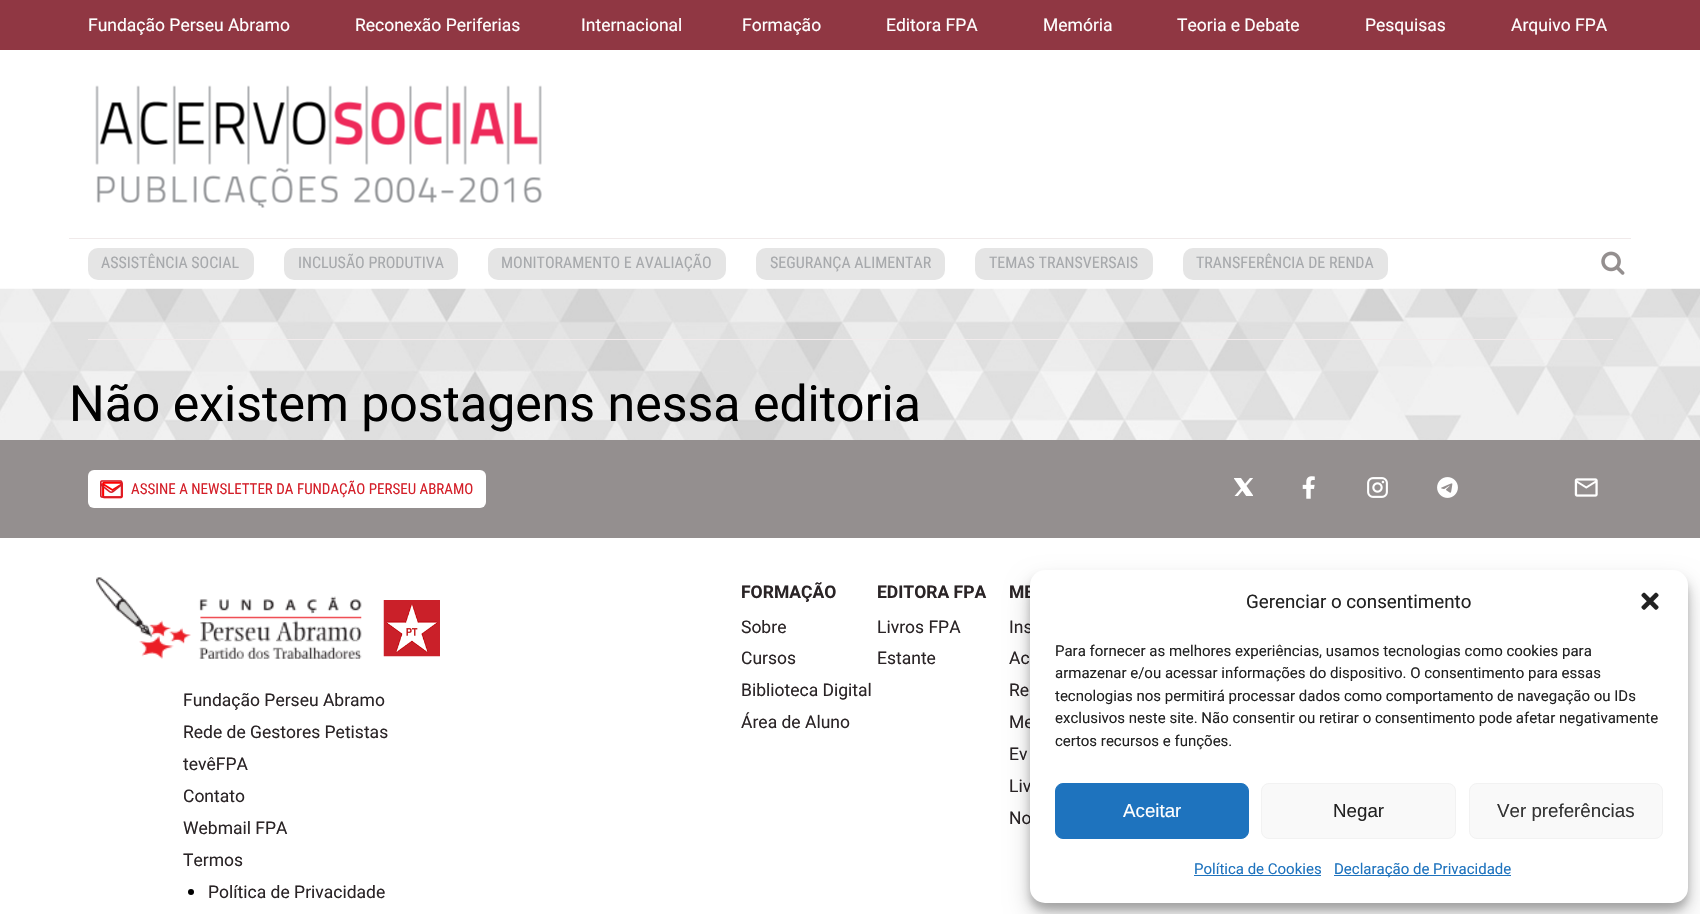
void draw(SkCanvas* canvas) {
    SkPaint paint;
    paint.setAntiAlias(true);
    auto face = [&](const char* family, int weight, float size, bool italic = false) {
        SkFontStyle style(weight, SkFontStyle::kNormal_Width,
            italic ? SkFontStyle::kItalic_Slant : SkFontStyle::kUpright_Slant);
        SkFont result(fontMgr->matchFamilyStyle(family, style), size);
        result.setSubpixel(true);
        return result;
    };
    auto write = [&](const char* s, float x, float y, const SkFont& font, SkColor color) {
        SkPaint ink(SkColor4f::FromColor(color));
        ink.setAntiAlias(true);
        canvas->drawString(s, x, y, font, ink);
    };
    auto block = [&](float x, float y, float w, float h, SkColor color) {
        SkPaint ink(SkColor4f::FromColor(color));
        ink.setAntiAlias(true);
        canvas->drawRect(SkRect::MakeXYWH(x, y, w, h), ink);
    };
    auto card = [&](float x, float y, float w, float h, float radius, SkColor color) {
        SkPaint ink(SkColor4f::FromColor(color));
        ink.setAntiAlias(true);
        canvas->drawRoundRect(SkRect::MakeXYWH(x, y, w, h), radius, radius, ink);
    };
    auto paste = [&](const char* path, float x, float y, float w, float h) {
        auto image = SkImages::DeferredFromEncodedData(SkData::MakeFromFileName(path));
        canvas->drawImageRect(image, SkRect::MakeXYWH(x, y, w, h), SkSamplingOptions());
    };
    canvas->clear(SK_ColorWHITE);
    block(0, 0, 1700, 50, SkColorSetRGB(144, 55, 67));
    auto kFont1 = face("Roboto", 400, 17.5f);
    write("Fundação Perseu Abramo", 88, 31, kFont1, SK_ColorWHITE);
    write("Reconexão Periferias", 355, 31, kFont1, SK_ColorWHITE);
    write("Internacional", 581, 31, kFont1, SK_ColorWHITE);
    write("Formação", 742, 31, kFont1, SK_ColorWHITE);
    write("Editora FPA", 886, 31, kFont1, SK_ColorWHITE);
    write("Memória", 1043, 31, kFont1, SK_ColorWHITE);
    write("Teoria e Debate", 1177, 31, kFont1, SK_ColorWHITE);
    write("Pesquisas", 1365, 31, kFont1, SK_ColorWHITE);
    write("Arquivo FPA", 1511, 31, kFont1, SK_ColorWHITE);
    block(69, 238, 1562, 1, SkColorSetRGB(240, 234, 234));
    paste("pic1.png", 95, 85, 447, 123);
    card(88, 248, 166, 32, 10, SkColorSetRGB(229, 229, 229));
    auto kFont2 = face("Roboto Condensed", 400, 16);
    write("ASSISTÊNCIA SOCIAL", 101, 268, kFont2, SkColorSetRGB(167, 169, 172));
    card(284, 248, 174, 32, 10, SkColorSetRGB(229, 229, 229));
    write("INCLUSÃO PRODUTIVA", 298, 268, kFont2, SkColorSetRGB(167, 169, 172));
    card(488, 248, 238, 32, 10, SkColorSetRGB(229, 229, 229));
    write("MONITORAMENTO E AVALIAÇÃO", 501, 268, kFont2, SkColorSetRGB(167, 169, 172));
    card(756, 248, 189, 32, 10, SkColorSetRGB(229, 229, 229));
    write("SEGURANÇA ALIMENTAR", 770, 268, kFont2, SkColorSetRGB(167, 169, 172));
    card(975, 248, 178, 32, 10, SkColorSetRGB(229, 229, 229));
    write("TEMAS TRANSVERSAIS", 989, 268, kFont2, SkColorSetRGB(167, 169, 172));
    card(1183, 248, 205, 32, 10, SkColorSetRGB(229, 229, 229));
    write("TRANSFERÊNCIA DE RENDA", 1196, 268, kFont2, SkColorSetRGB(167, 169, 172));
    paste("pic2.png", 1601, 251, 24, 24);
    paste("pic3.png", 0, 288, 1700, 152);
    block(88, 339, 1525, 1, SkColorSetRGB(242, 235, 236));
    auto kFont3 = face("Roboto", 400, 50);
    write("Não existem postagens nessa editoria", 69, 421, kFont3, SK_ColorBLACK);
    block(0, 440, 1700, 98, SkColorSetRGB(148, 143, 143));
    card(88, 470, 398, 38, 6, SK_ColorWHITE);
    paste("pic4.png", 102, 481, 21, 18);
    paste("pic5.png", 100, 480, 23, 18);
    auto kFont4 = face("Roboto Condensed", 400, 15);
    write("ASSINE A NEWSLETTER DA FUNDAÇÃO PERSEU ABRAMO", 131, 494, kFont4, SkColorSetRGB(212, 31, 41));
    paste("pic6.png", 1234, 478, 19, 18);
    paste("pic7.png", 1302, 476, 13, 23);
    paste("pic8.png", 1367, 477, 21, 21);
    paste("pic9.png", 1437, 477, 21, 21);
    paste("pic10.png", 1574, 478, 24, 19);
    paste("pic11.png", 96, 577, 266, 82);
    paste("pic12.png", 383, 600, 57, 57);
    write("Fundação Perseu Abramo", 183, 706, kFont1, SkColorSetRGB(42, 36, 38));
    write("Rede de Gestores Petistas", 183, 738, kFont1, SkColorSetRGB(42, 36, 38));
    write("tevêFPA", 183, 770, kFont1, SkColorSetRGB(42, 36, 38));
    write("Contato", 183, 802, kFont1, SkColorSetRGB(42, 36, 38));
    write("Webmail FPA", 183, 834, kFont1, SkColorSetRGB(42, 36, 38));
    write("Termos", 183, 866, kFont1, SkColorSetRGB(42, 36, 38));
    paint.setColor(SK_ColorBLACK);
    canvas->drawCircle(191, 892, 3, paint);
    write("Política de Privacidade", 208, 898, kFont1, SkColorSetRGB(42, 36, 38));
    auto kFont5 = face("Roboto", 700, 17.5f);
    write("FORMAÇÃO", 741, 598, kFont5, SkColorSetRGB(42, 36, 38));
    write("Sobre", 741, 633, kFont1, SkColorSetRGB(42, 36, 38));
    write("Cursos", 741, 664, kFont1, SkColorSetRGB(42, 36, 38));
    write("Biblioteca Digital", 741, 696, kFont1, SkColorSetRGB(42, 36, 38));
    write("Área de Aluno", 741, 728, kFont1, SkColorSetRGB(42, 36, 38));
    write("EDITORA FPA", 877, 598, kFont5, SkColorSetRGB(42, 36, 38));
    write("Livros FPA", 877, 633, kFont1, SkColorSetRGB(42, 36, 38));
    write("Estante", 877, 664, kFont1, SkColorSetRGB(42, 36, 38));
    write("ME", 1009, 598, kFont5, SkColorSetRGB(42, 36, 38));
    write("Ins", 1009, 633, kFont1, SkColorSetRGB(42, 36, 38));
    write("Ac", 1009, 664, kFont1, SkColorSetRGB(42, 36, 38));
    write("Re", 1009, 696, kFont1, SkColorSetRGB(42, 36, 38));
    write("Me", 1009, 728, kFont1, SkColorSetRGB(42, 36, 38));
    write("Ev", 1009, 760, kFont1, SkColorSetRGB(42, 36, 38));
    write("Liv", 1009, 792, kFont1, SkColorSetRGB(42, 36, 38));
    write("No", 1009, 824, kFont1, SkColorSetRGB(42, 36, 38));
    paint.setColor(SkColorSetARGB(59, 0, 0, 0));
    paint.setMaskFilter(SkMaskFilter::MakeBlur(kNormal_SkBlurStyle, 4));
    canvas->drawRoundRect(SkRect::MakeXYWH(1030, 578, 658, 332), 15, 15, paint);
    paint.setMaskFilter(nullptr);
    paint.setColor(SkColorSetARGB(48, 0, 0, 0));
    paint.setMaskFilter(SkMaskFilter::MakeBlur(kNormal_SkBlurStyle, 12.5f));
    canvas->drawRoundRect(SkRect::MakeXYWH(1030, 583, 658, 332), 15, 15, paint);
    paint.setMaskFilter(nullptr);
    card(1030, 570, 658, 333, 15, SK_ColorWHITE);
    auto kFont6 = face("Roboto", 400, 18.75f);
    write("Gerenciar o consentimento", 1246, 608, kFont6, SkColorSetRGB(34, 34, 34));
    paste("pic13.png", 1641, 592, 18, 18);
    auto kFont7 = face("Roboto", 400, 15);
    write("Para fornecer as melhores experiências, usamos tecnologias como cookies para", 1055, 656, kFont7, SkColorSetRGB(34, 34, 34));
    write("armazenar e/ou acessar informações do dispositivo. O consentimento para essas", 1055, 678, kFont7, SkColorSetRGB(34, 34, 34));
    write("tecnologias nos permitirá processar dados como comportamento de navegação ou IDs", 1055, 701, kFont7, SkColorSetRGB(34, 34, 34));
    write("exclusivos neste site. Não consentir ou retirar o consentimento pode afetar negativamente", 1055, 723, kFont7, SkColorSetRGB(34, 34, 34));
    write("certos recursos e funções.", 1055, 746, kFont7, SkColorSetRGB(34, 34, 34));
    paint.setColor(SkColorSetRGB(30, 115, 190));
    canvas->drawRoundRect(SkRect::MakeXYWH(1055.5f, 783.5f, 193, 55), 7.5f, 7.5f, paint);
    paint.setStyle(SkPaint::kStroke_Style);
    paint.setStrokeWidth(1);
    canvas->drawRoundRect(SkRect::MakeXYWH(1055.5f, 783.5f, 193, 55), 7.5f, 7.5f, paint);
    auto kFont8 = face("Liberation Sans", 400, 18.75f);
    write("Aceitar", 1123, 817, kFont8, SK_ColorWHITE);
    paint.setStyle(SkPaint::kFill_Style);
    paint.setColor(SkColorSetRGB(249, 249, 249));
    canvas->drawRoundRect(SkRect::MakeXYWH(1261.5f, 783.5f, 194, 55), 7.5f, 7.5f, paint);
    paint.setStyle(SkPaint::kStroke_Style);
    paint.setColor(SkColorSetRGB(242, 242, 242));
    canvas->drawRoundRect(SkRect::MakeXYWH(1261.5f, 783.5f, 194, 55), 7.5f, 7.5f, paint);
    write("Negar", 1333, 817, kFont8, SkColorSetRGB(34, 34, 34));
    paint.setStyle(SkPaint::kFill_Style);
    paint.setColor(SkColorSetRGB(249, 249, 249));
    canvas->drawRoundRect(SkRect::MakeXYWH(1469.5f, 783.5f, 193, 55), 7.5f, 7.5f, paint);
    paint.setStyle(SkPaint::kStroke_Style);
    paint.setColor(SkColorSetRGB(242, 242, 242));
    canvas->drawRoundRect(SkRect::MakeXYWH(1469.5f, 783.5f, 193, 55), 7.5f, 7.5f, paint);
    write("Ver preferências", 1497, 817, kFont8, SkColorSetRGB(51, 51, 51));
    write("Política de Cookies", 1194, 874, kFont7, SkColorSetRGB(30, 115, 190));
    block(1194, 875, 127, 1, SkColorSetRGB(30, 115, 190));
    block(1334, 875, 177, 1, SkColorSetRGB(30, 115, 190));
    write("Declaração de Privacidade", 1334, 874, kFont7, SkColorSetRGB(30, 115, 190));
}
